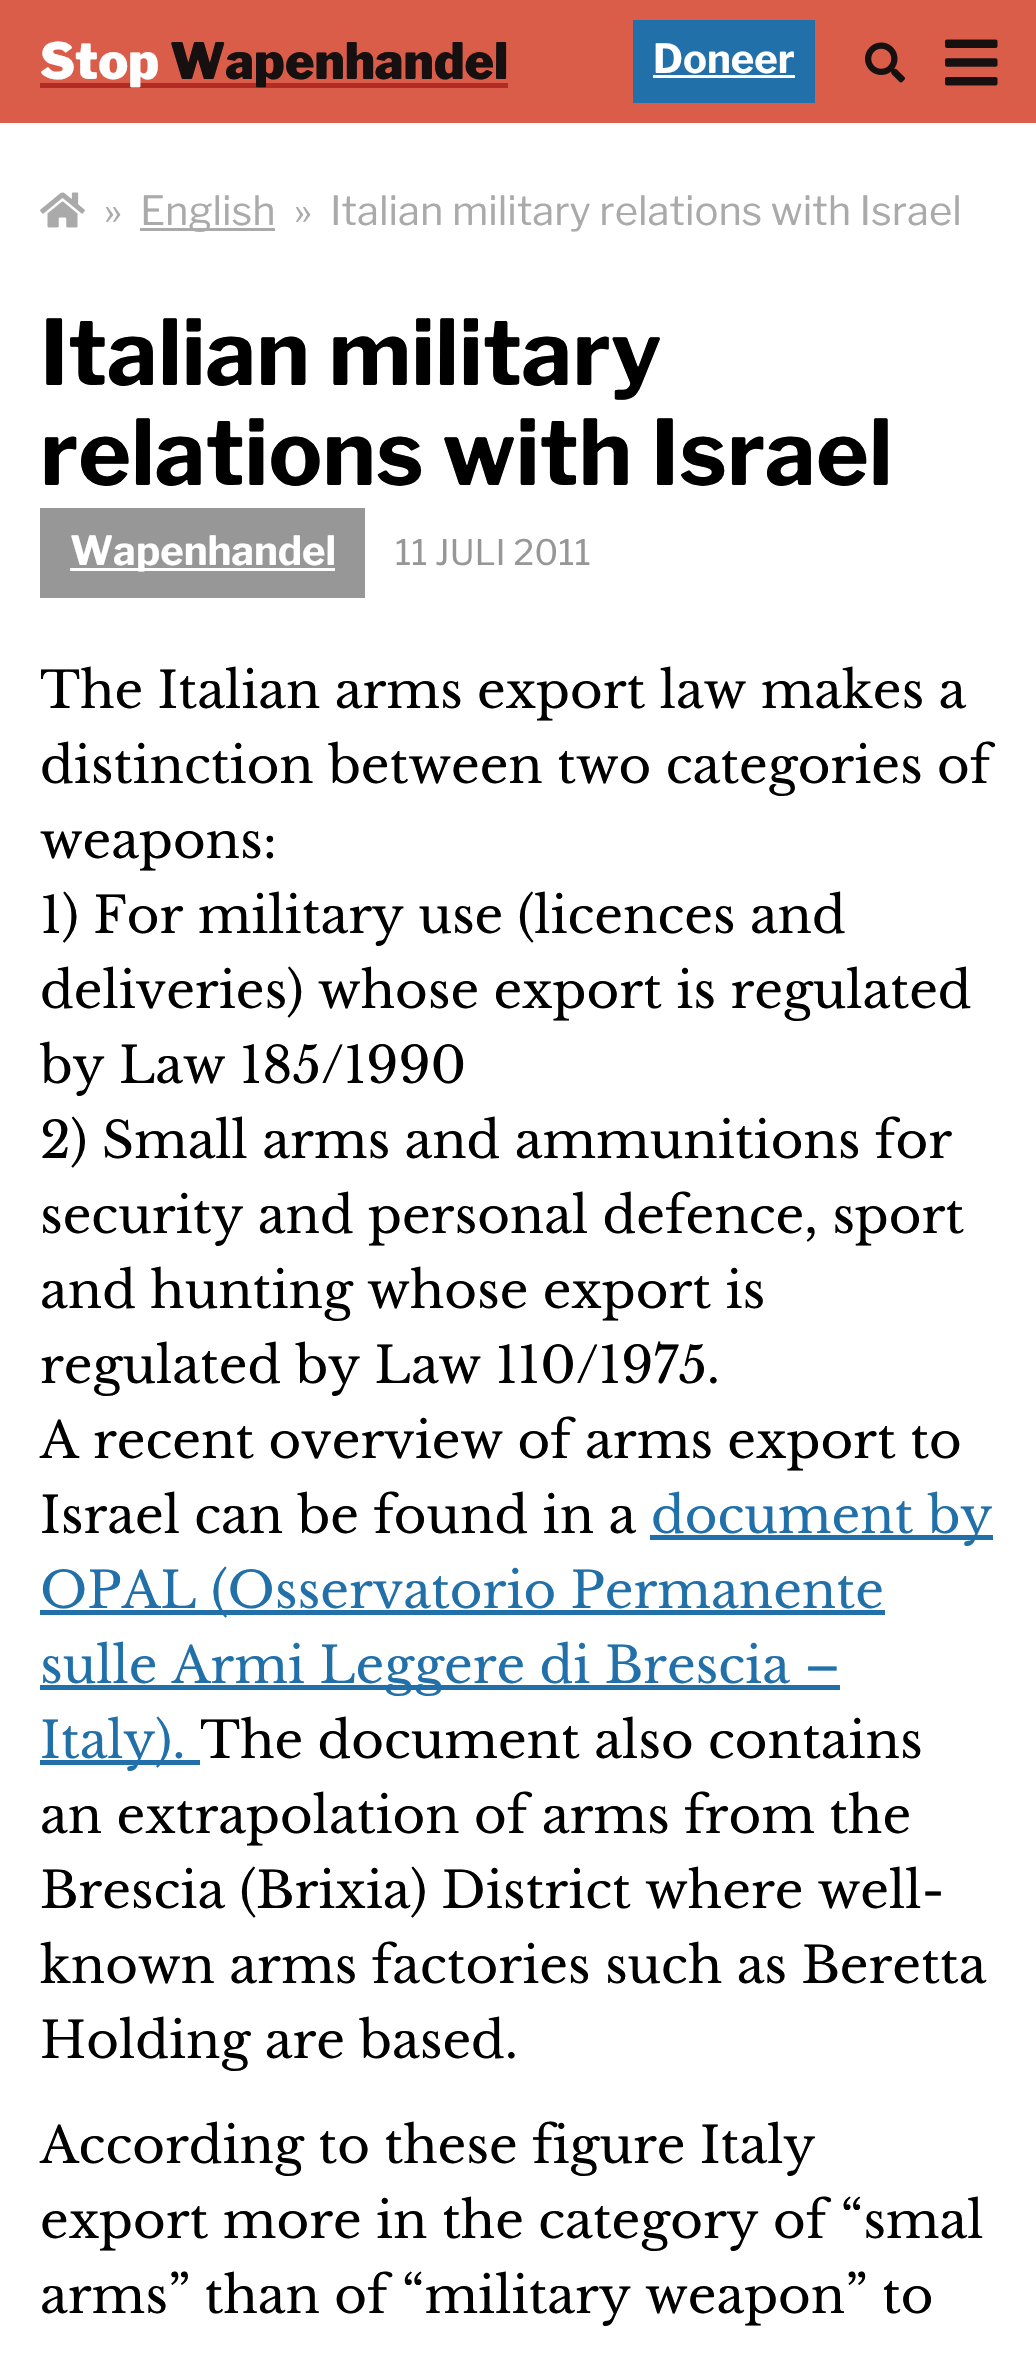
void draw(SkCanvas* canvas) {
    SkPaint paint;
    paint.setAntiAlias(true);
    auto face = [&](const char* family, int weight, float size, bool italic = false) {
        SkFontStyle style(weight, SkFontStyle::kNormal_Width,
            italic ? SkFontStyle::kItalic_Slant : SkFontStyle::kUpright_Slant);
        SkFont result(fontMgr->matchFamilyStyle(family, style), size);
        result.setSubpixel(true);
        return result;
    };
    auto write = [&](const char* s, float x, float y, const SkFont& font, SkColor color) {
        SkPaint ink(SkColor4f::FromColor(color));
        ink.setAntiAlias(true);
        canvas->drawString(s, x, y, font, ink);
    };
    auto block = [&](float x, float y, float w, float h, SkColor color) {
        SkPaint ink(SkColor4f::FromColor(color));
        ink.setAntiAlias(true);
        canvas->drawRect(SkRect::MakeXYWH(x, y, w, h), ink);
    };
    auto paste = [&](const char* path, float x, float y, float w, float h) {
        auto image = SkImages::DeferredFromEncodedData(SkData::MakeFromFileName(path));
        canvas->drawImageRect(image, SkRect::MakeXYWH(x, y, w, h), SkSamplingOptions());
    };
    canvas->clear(SK_ColorWHITE);
    block(0, 0, 1036, 123, SkColorSetRGB(218, 93, 73));
    block(40, 83, 468, 5, SkColorSetRGB(178, 43, 36));
    auto kFont1 = face("Libre Franklin", 900, 50);
    write("Stop", 40, 79, kFont1, SK_ColorWHITE);
    write("Wapenhandel", 170, 79, kFont1, SkColorSetRGB(22, 16, 16));
    block(633, 20, 182, 83, SkColorSetRGB(34, 112, 170));
    auto kFont2 = face("Libre Franklin", 700, 40);
    write("Doneer", 653, 73, kFont2, SK_ColorWHITE);
    block(653, 75, 142, 3, SK_ColorWHITE);
    paste("pic1.png", 865, 42, 40, 41);
    paste("pic2.png", 945, 39, 53, 47);
    paste("pic3.png", 40, 192, 45, 36);
    auto kFont3 = face("Libre Franklin", 400, 40);
    write("»", 104, 225, kFont3, SkColorSetRGB(170, 170, 170));
    block(140, 228, 135, 3, SkColorSetRGB(170, 170, 170));
    write("English", 140, 225, kFont3, SkColorSetRGB(170, 170, 170));
    write("»", 294, 225, kFont3, SkColorSetRGB(170, 170, 170));
    write("Italian military relations with Israel", 330, 225, kFont3, SkColorSetRGB(170, 170, 170));
    auto kFont4 = face("Libre Franklin", 700, 90);
    write("Italian military", 40, 385, kFont4, SK_ColorBLACK);
    write("relations with Israel", 40, 485, kFont4, SK_ColorBLACK);
    block(40, 508, 325, 90, SkColorSetRGB(151, 151, 151));
    block(70, 568, 265, 3, SK_ColorWHITE);
    write("Wapenhandel", 70, 565, kFont2, SK_ColorWHITE);
    auto kFont5 = face("Libre Franklin", 400, 35);
    write("11 JULI 2011", 395, 565, kFont5, SkColorSetRGB(151, 151, 151));
    auto kFont6 = face("Libre Baskerville", 400, 50);
    write("The Italian arms export law makes a", 40, 708, kFont6, SK_ColorBLACK);
    write("distinction between two categories of", 40, 783, kFont6, SK_ColorBLACK);
    write("weapons:", 40, 858, kFont6, SK_ColorBLACK);
    write("1) For military use (licences and", 40, 933, kFont6, SK_ColorBLACK);
    write("deliveries) whose export is regulated", 40, 1008, kFont6, SK_ColorBLACK);
    write("by Law 185/1990", 40, 1083, kFont6, SK_ColorBLACK);
    write("2) Small arms and ammunitions for", 40, 1158, kFont6, SK_ColorBLACK);
    write("security and personal defence, sport", 40, 1233, kFont6, SK_ColorBLACK);
    write("and hunting whose export is", 40, 1308, kFont6, SK_ColorBLACK);
    write("regulated by Law 110/1975.", 40, 1383, kFont6, SK_ColorBLACK);
    write("A recent overview of arms export to", 40, 1458, kFont6, SK_ColorBLACK);
    write("Israel can be found in a", 40, 1533, kFont6, SK_ColorBLACK);
    block(650, 1535, 343, 5, SkColorSetRGB(34, 112, 170));
    write("document by", 651, 1533, kFont6, SkColorSetRGB(34, 112, 170));
    block(40, 1610, 845, 5, SkColorSetRGB(34, 112, 170));
    write("OPAL (Osservatorio Permanente", 40, 1608, kFont6, SkColorSetRGB(34, 112, 170));
    block(40, 1685, 800, 5, SkColorSetRGB(34, 112, 170));
    write("sulle Armi Leggere di Brescia –", 40, 1683, kFont6, SkColorSetRGB(34, 112, 170));
    block(40, 1760, 160, 5, SkColorSetRGB(34, 112, 170));
    write("Italy).", 40, 1758, kFont6, SkColorSetRGB(34, 112, 170));
    write("The document also contains", 200, 1758, kFont6, SK_ColorBLACK);
    write("an extrapolation of arms from the", 40, 1833, kFont6, SK_ColorBLACK);
    write("Brescia (Brixia) District where well-", 40, 1908, kFont6, SK_ColorBLACK);
    write("known arms factories such as Beretta", 40, 1983, kFont6, SK_ColorBLACK);
    write("Holding are based.", 40, 2058, kFont6, SK_ColorBLACK);
    write("According to these figure Italy", 40, 2163, kFont6, SK_ColorBLACK);
    write("export more in the category of “smal", 40, 2238, kFont6, SK_ColorBLACK);
    write("arms” than of “military weapon” to", 40, 2313, kFont6, SK_ColorBLACK);
}
